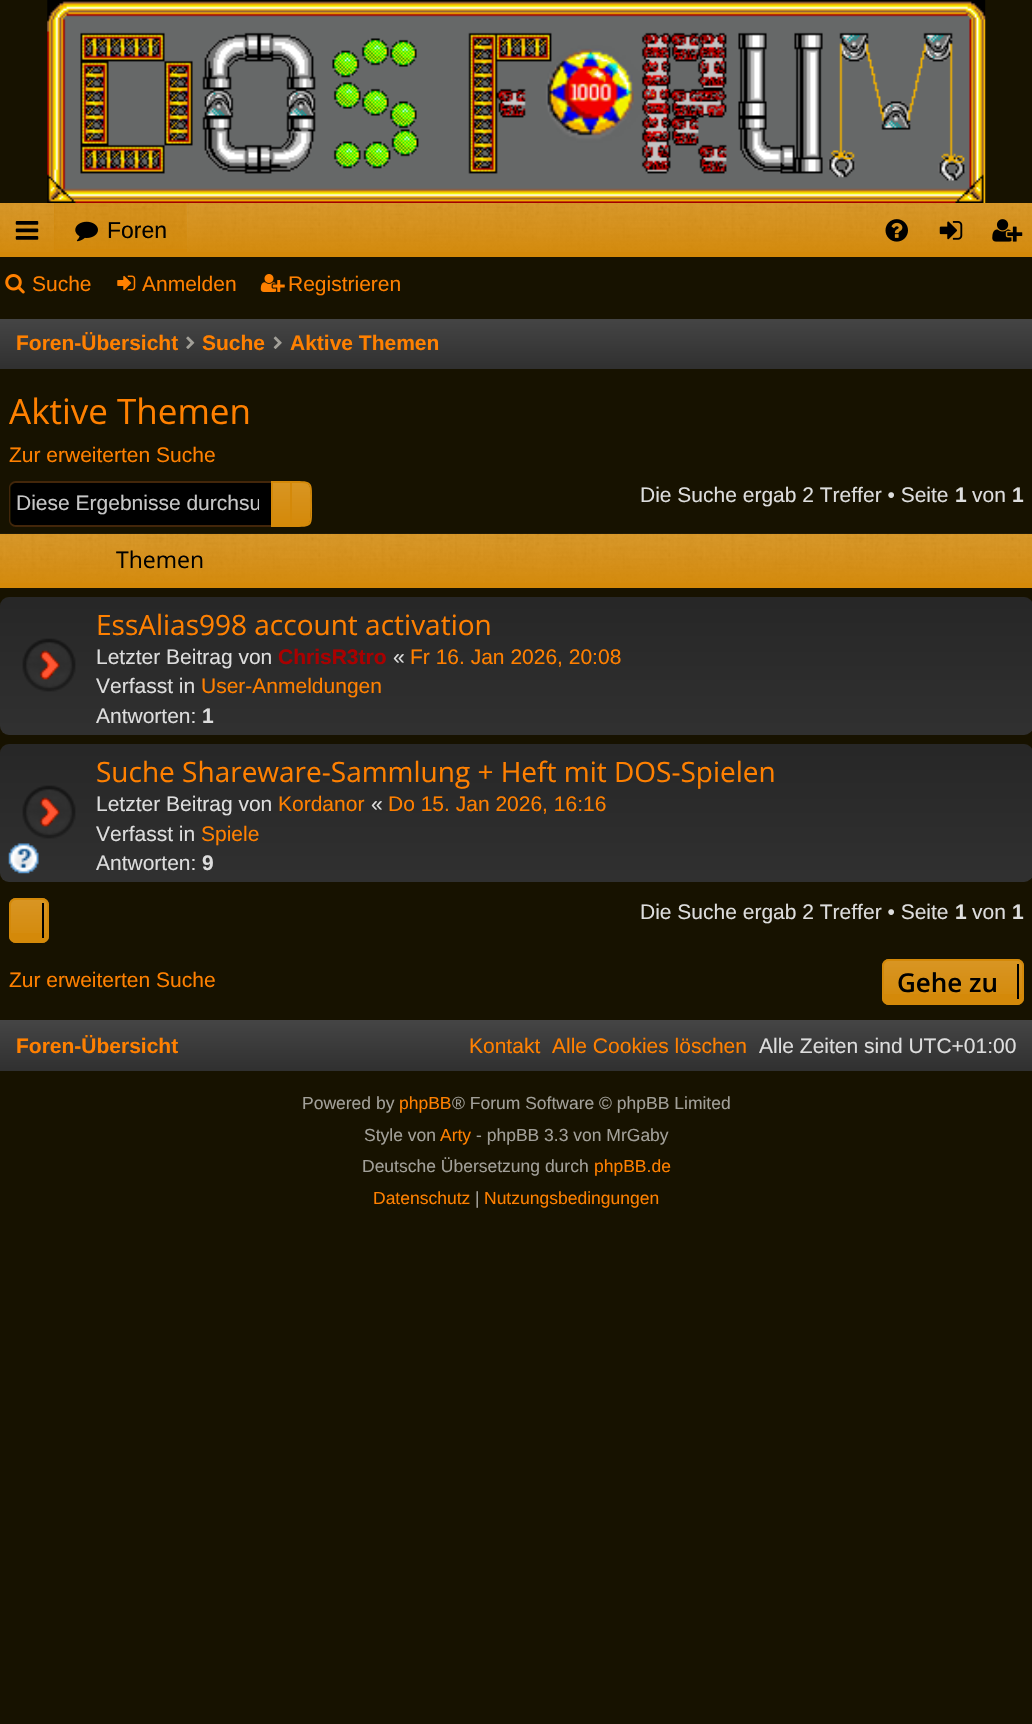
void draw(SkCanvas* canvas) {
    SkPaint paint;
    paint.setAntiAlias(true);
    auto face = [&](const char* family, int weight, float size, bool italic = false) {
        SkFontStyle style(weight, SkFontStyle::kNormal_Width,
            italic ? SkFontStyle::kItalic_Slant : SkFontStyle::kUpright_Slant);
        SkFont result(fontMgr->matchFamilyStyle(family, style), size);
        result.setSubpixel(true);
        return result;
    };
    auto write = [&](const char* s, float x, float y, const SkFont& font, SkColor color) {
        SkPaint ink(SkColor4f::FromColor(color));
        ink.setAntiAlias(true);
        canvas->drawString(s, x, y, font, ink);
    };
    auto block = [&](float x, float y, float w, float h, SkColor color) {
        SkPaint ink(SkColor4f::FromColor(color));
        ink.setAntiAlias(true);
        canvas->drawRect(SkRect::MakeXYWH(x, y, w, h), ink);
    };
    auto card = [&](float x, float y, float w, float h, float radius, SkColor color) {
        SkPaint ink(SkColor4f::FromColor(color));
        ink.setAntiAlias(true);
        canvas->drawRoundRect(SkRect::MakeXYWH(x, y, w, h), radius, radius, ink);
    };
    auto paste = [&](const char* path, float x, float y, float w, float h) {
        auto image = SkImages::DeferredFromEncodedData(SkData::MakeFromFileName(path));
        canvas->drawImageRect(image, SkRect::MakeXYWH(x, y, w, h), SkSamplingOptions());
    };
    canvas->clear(SkColorSetRGB(23, 18, 0));
    paste("pic1.png", 47, 0, 939, 203);
    block(0, 203, 1032, 54, SkColorSetRGB(212, 137, 9));
    paste("pic2.png", 0, 203, 1032, 49);
    paste("pic3.png", 15, 221, 24, 19);
    block(54, 203, 133, 49, SkColorSetRGB(212, 137, 9));
    paste("pic4.png", 54, 203, 134, 46);
    paste("pic5.png", 75, 221, 23, 21);
    auto kFont1 = face("Liberation Sans", 400, 23);
    write("Foren", 107, 238, kFont1, SK_ColorBLACK);
    paste("pic6.png", 885, 219, 23, 23);
    paste("pic7.png", 939, 221, 24, 19);
    paste("pic8.png", 992, 219, 31, 23);
    paste("pic9.png", 5, 274, 20, 20);
    auto kFont2 = face("Liberation Sans", 400, 21);
    write("Suche", 32, 291, kFont2, SkColorSetRGB(255, 128, 0));
    paste("pic10.png", 117, 275, 19, 16);
    write("Anmelden", 142, 291, kFont2, SkColorSetRGB(255, 128, 0));
    paste("pic11.png", 260, 274, 25, 18);
    write("Registrieren", 288, 291, kFont2, SkColorSetRGB(255, 128, 0));
    {
        const SkColor colors[] = {SkColorSetRGB(69, 69, 69), SkColorSetRGB(48, 48, 48)};
        const float stops[] = {0, 1};
        const SkPoint ends[] = {{516, 318}, {516, 369}};
        paint.setShader(SkGradientShader::MakeLinear(ends, colors, stops, 2, SkTileMode::kClamp));
        paint.setAlpha(255);
    }
    canvas->drawRect(SkRect::MakeXYWH(0, 319, 1032, 50), paint);
    auto kFont3 = face("Liberation Sans", 700, 21);
    write("Foren-Übersicht", 16, 350, kFont3, SkColorSetRGB(255, 128, 0));
    paste("pic12.png", 186, 336, 9, 13);
    write("Suche", 202, 350, kFont3, SkColorSetRGB(255, 128, 0));
    paste("pic13.png", 273, 336, 9, 13);
    write("Aktive Themen", 290, 350, kFont3, SkColorSetRGB(255, 128, 0));
    auto kFont4 = face("Open Sans", 400, 35);
    write("Aktive Themen", 9, 424, kFont4, SkColorSetRGB(255, 128, 0));
    write("Zur erweiterten Suche", 9, 462, kFont2, SkColorSetRGB(255, 128, 0));
    paint.setShader(nullptr);
    paint.setColor(SK_ColorBLACK);
    canvas->drawPath(SkPathBuilder().moveTo(16, 483).lineTo(271, 483).lineTo(271, 525).lineTo(16, 525).cubicTo(13, 525, 11, 523, 11, 520).lineTo(11, 488).cubicTo(11, 485, 13, 483, 16, 483).close().detach(), paint);
    paint.setColor(SkColorSetRGB(67, 38, 10));
    canvas->drawPath(SkPathBuilder(SkPathFillType::kEvenOdd).moveTo(16, 481).lineTo(271, 481).lineTo(271, 527).lineTo(16, 527).cubicTo(12, 527, 9, 524, 9, 520).lineTo(9, 488).cubicTo(9, 484, 12, 481, 16, 481).close().moveTo(16, 483).lineTo(271, 483).lineTo(271, 525).lineTo(16, 525).cubicTo(13, 525, 10, 523, 10, 520).lineTo(10, 488).cubicTo(10, 485, 13, 483, 16, 483).close().detach(), paint);
    canvas->save();
    canvas->clipRect(SkRect::MakeXYWH(16, 492, 243, 24));
    write("Diese Ergebnisse durchsu", 16, 510, kFont2, SkColorSetRGB(199, 199, 199));
    canvas->restore();
    {
        const SkColor colors[] = {SkColorSetRGB(216, 149, 34), SkColorSetRGB(212, 137, 9)};
        const float stops[] = {0, 1};
        const SkPoint ends[] = {{282, 483}, {282, 525}};
        paint.setShader(SkGradientShader::MakeLinear(ends, colors, stops, 2, SkTileMode::kClamp));
        paint.setAlpha(255);
    }
    canvas->drawRect(SkRect::MakeXYWH(273, 483, 17, 42), paint);
    paint.setStyle(SkPaint::kStroke_Style);
    paint.setStrokeWidth(2);
    paint.setShader(nullptr);
    paint.setColor(SkColorSetRGB(212, 137, 9));
    canvas->drawRect(SkRect::MakeXYWH(272, 482, 19, 44), paint);
    paint.setStyle(SkPaint::kFill_Style);
    canvas->drawPath(SkPathBuilder().moveTo(292, 483).lineTo(305, 483).cubicTo(308, 483, 310, 485, 310, 488).lineTo(310, 520).cubicTo(310, 523, 308, 525, 305, 525).lineTo(292, 525).close().detach(), paint);
    {
        const SkColor colors[] = {SkColorSetARGB(26, 255, 255, 255), SkColorSetARGB(0, 255, 255, 255)};
        const float stops[] = {0, 1};
        const SkPoint ends[] = {{301, 483}, {301, 525}};
        paint.setShader(SkGradientShader::MakeLinear(ends, colors, stops, 2, SkTileMode::kClamp));
        paint.setAlpha(255);
    }
    canvas->drawPath(SkPathBuilder().moveTo(292, 483).lineTo(305, 483).cubicTo(308, 483, 310, 485, 310, 488).lineTo(310, 520).cubicTo(310, 523, 308, 525, 305, 525).lineTo(292, 525).close().detach(), paint);
    paint.setShader(nullptr);
    paint.setColor(SkColorSetRGB(212, 137, 9));
    canvas->drawPath(SkPathBuilder(SkPathFillType::kEvenOdd).moveTo(292, 481).cubicTo(314, 481, 312, 481, 312, 504).cubicTo(312, 527, 314, 527, 292, 527).close().moveTo(292, 483).cubicTo(313, 483, 310, 482, 310, 504).cubicTo(310, 526, 313, 525, 292, 525).close().detach(), paint);
    write("Die Suche ergab 2 Treffer • Seite", 640, 502, kFont2, SkColorSetRGB(221, 221, 221));
    write("1", 955, 502, kFont3, SkColorSetRGB(221, 221, 221));
    write("von", 972, 502, kFont2, SkColorSetRGB(221, 221, 221));
    write("1", 1012, 502, kFont3, SkColorSetRGB(221, 221, 221));
    block(0, 534, 1032, 54, SkColorSetRGB(212, 137, 9));
    paste("pic14.png", 0, 533, 1032, 50);
    auto kFont5 = face("Open Sans", 400, 23);
    write("Themen", 116, 568, kFont5, SK_ColorBLACK);
    card(0, 597, 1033, 138, 9, SkColorSetRGB(48, 48, 48));
    {
        const SkColor colors[] = {SkColorSetARGB(51, 0, 0, 0), SkColorSetARGB(0, 0, 0, 0)};
        const float stops[] = {0, 1};
        const SkPoint ends[] = {{516, 597}, {516, 735}};
        paint.setShader(SkGradientShader::MakeLinear(ends, colors, stops, 2, SkTileMode::kClamp));
        paint.setAlpha(255);
    }
    canvas->drawRoundRect(SkRect::MakeXYWH(0, 597, 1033, 138), 9, 9, paint);
    paste("pic15.png", 22, 638, 54, 54);
    auto kFont6 = face("Open Sans", 400, 28);
    write("EssAlias998 account activation", 96, 635, kFont6, SkColorSetRGB(255, 128, 0));
    write("Letzter Beitrag von", 96, 664, kFont2, SkColorSetRGB(221, 221, 221));
    write("ChrisR3tro", 278, 664, kFont3, SkColorSetRGB(170, 0, 0));
    write("«", 393, 664, kFont2, SkColorSetRGB(221, 221, 221));
    write("Fr 16. Jan 2026, 20:08", 410, 664, kFont2, SkColorSetRGB(255, 128, 0));
    write("Verfasst in", 96, 693, kFont2, SkColorSetRGB(221, 221, 221));
    write("User-Anmeldungen", 201, 693, kFont2, SkColorSetRGB(255, 128, 0));
    write("Antworten:", 96, 723, kFont2, SkColorSetRGB(221, 221, 221));
    write("1", 202, 723, kFont3, SkColorSetRGB(221, 221, 221));
    card(0, 744, 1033, 138, 9, SkColorSetRGB(48, 48, 48));
    {
        const SkColor colors[] = {SkColorSetARGB(51, 0, 0, 0), SkColorSetARGB(0, 0, 0, 0)};
        const float stops[] = {0, 1};
        const SkPoint ends[] = {{516, 744}, {516, 882}};
        paint.setShader(SkGradientShader::MakeLinear(ends, colors, stops, 2, SkTileMode::kClamp));
        paint.setAlpha(255);
    }
    canvas->drawRoundRect(SkRect::MakeXYWH(0, 744, 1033, 138), 9, 9, paint);
    paste("pic15.png", 22, 785, 54, 54);
    paste("pic16.png", 8, 843, 31, 31);
    write("Suche Shareware-Sammlung + Heft mit DOS-Spielen", 96, 782, kFont6, SkColorSetRGB(255, 128, 0));
    write("Letzter Beitrag von", 96, 811, kFont2, SkColorSetRGB(221, 221, 221));
    write("Kordanor", 278, 811, kFont2, SkColorSetRGB(255, 128, 0));
    write("«", 371, 811, kFont2, SkColorSetRGB(221, 221, 221));
    write("Do 15. Jan 2026, 16:16", 388, 811, kFont2, SkColorSetRGB(255, 128, 0));
    write("Verfasst in", 96, 841, kFont2, SkColorSetRGB(221, 221, 221));
    write("Spiele", 201, 841, kFont2, SkColorSetRGB(255, 128, 0));
    write("Antworten:", 96, 870, kFont2, SkColorSetRGB(221, 221, 221));
    write("9", 202, 870, kFont3, SkColorSetRGB(221, 221, 221));
    card(9, 898, 40, 45, 7, SkColorSetRGB(212, 137, 9));
    canvas->save();
    canvas->clipPath(SkPathBuilder().moveTo(16, 898).lineTo(42, 898).cubicTo(46, 898, 49, 901, 49, 905).lineTo(49, 936).cubicTo(49, 940, 46, 943, 42, 943).lineTo(16, 943).cubicTo(12, 943, 9, 940, 9, 936).lineTo(9, 905).cubicTo(9, 901, 12, 898, 16, 898).close().detach(), true);
    {
        const SkColor colors[] = {SkColorSetARGB(26, 255, 255, 255), SkColorSetARGB(0, 255, 255, 255)};
        const float stops[] = {0, 1};
        const SkPoint ends[] = {{29, 900}, {29, 942}};
        paint.setShader(SkGradientShader::MakeLinear(ends, colors, stops, 2, SkTileMode::kClamp));
        paint.setAlpha(255);
    }
    canvas->drawRect(SkRect::MakeXYWH(9, 900, 40, 33), paint);
    canvas->restore();
    paint.setStyle(SkPaint::kStroke_Style);
    paint.setShader(nullptr);
    paint.setColor(SkColorSetRGB(212, 137, 9));
    canvas->drawRoundRect(SkRect::MakeXYWH(10, 899, 38, 43), 6, 6, paint);
    block(42, 903, 2, 35, SK_ColorBLACK);
    write("Die Suche ergab 2 Treffer • Seite", 640, 919, kFont2, SkColorSetRGB(221, 221, 221));
    write("1", 955, 919, kFont3, SkColorSetRGB(221, 221, 221));
    write("von", 972, 919, kFont2, SkColorSetRGB(221, 221, 221));
    write("1", 1012, 919, kFont3, SkColorSetRGB(221, 221, 221));
    write("Zur erweiterten Suche", 9, 987, kFont2, SkColorSetRGB(255, 128, 0));
    card(882, 959, 142, 46, 7, SkColorSetRGB(212, 137, 9));
    canvas->save();
    canvas->clipPath(SkPathBuilder().moveTo(889, 959).lineTo(1017, 959).cubicTo(1021, 959, 1024, 962, 1024, 966).lineTo(1024, 998).cubicTo(1024, 1002, 1021, 1005, 1017, 1005).lineTo(889, 1005).cubicTo(885, 1005, 882, 1002, 882, 998).lineTo(882, 966).cubicTo(882, 962, 885, 959, 889, 959).close().detach(), true);
    paint.setStyle(SkPaint::kFill_Style);
    {
        const SkColor colors[] = {SkColorSetARGB(26, 255, 255, 255), SkColorSetARGB(0, 255, 255, 255)};
        const float stops[] = {0, 1};
        const SkPoint ends[] = {{953, 961}, {953, 1003}};
        paint.setShader(SkGradientShader::MakeLinear(ends, colors, stops, 2, SkTileMode::kClamp));
        paint.setAlpha(255);
    }
    canvas->drawRect(SkRect::MakeXYWH(882, 961, 142, 33), paint);
    canvas->restore();
    paint.setStyle(SkPaint::kStroke_Style);
    paint.setShader(nullptr);
    paint.setColor(SkColorSetRGB(212, 137, 9));
    canvas->drawRoundRect(SkRect::MakeXYWH(883, 960, 140, 44), 6, 6, paint);
    auto kFont7 = face("Open Sans", 600, 26);
    write("Gehe zu", 897, 992, kFont7, SK_ColorBLACK);
    block(1017, 964, 2, 35, SK_ColorBLACK);
    paint.setStyle(SkPaint::kFill_Style);
    {
        const SkColor colors[] = {SkColorSetRGB(69, 69, 69), SkColorSetRGB(48, 48, 48)};
        const float stops[] = {0, 1};
        const SkPoint ends[] = {{516, 1020}, {516, 1071}};
        paint.setShader(SkGradientShader::MakeLinear(ends, colors, stops, 2, SkTileMode::kClamp));
        paint.setAlpha(255);
    }
    canvas->drawRect(SkRect::MakeXYWH(0, 1020, 1032, 51), paint);
    write("Foren-Übersicht", 16, 1053, kFont3, SkColorSetRGB(255, 128, 0));
    write("Kontakt", 469, 1053, kFont2, SkColorSetRGB(255, 128, 0));
    write("Alle Cookies löschen", 552, 1053, kFont2, SkColorSetRGB(255, 128, 0));
    write("Alle Zeiten sind UTC+01:00", 759, 1053, kFont2, SkColorSetRGB(221, 221, 221));
    auto kFont8 = face("Liberation Sans", 400, 17.5f);
    write("Powered by", 302, 1109, kFont8, SkColorSetRGB(162, 160, 153));
    write("phpBB", 399, 1109, kFont8, SkColorSetRGB(255, 128, 0));
    write("® Forum Software © phpBB Limited", 452, 1109, kFont8, SkColorSetRGB(162, 160, 153));
    write("Style von", 364, 1141, kFont8, SkColorSetRGB(162, 160, 153));
    write("Arty", 440, 1141, kFont8, SkColorSetRGB(255, 128, 0));
    write("- phpBB 3.3 von MrGaby", 476, 1141, kFont8, SkColorSetRGB(162, 160, 153));
    write("Deutsche Übersetzung durch", 362, 1172, kFont8, SkColorSetRGB(162, 160, 153));
    write("phpBB.de", 594, 1172, kFont8, SkColorSetRGB(255, 128, 0));
    write("Datenschutz", 373, 1204, kFont8, SkColorSetRGB(255, 128, 0));
    write("|", 475, 1204, kFont8, SkColorSetRGB(162, 160, 153));
    write("Nutzungsbedingungen", 484, 1204, kFont8, SkColorSetRGB(255, 128, 0));
}
